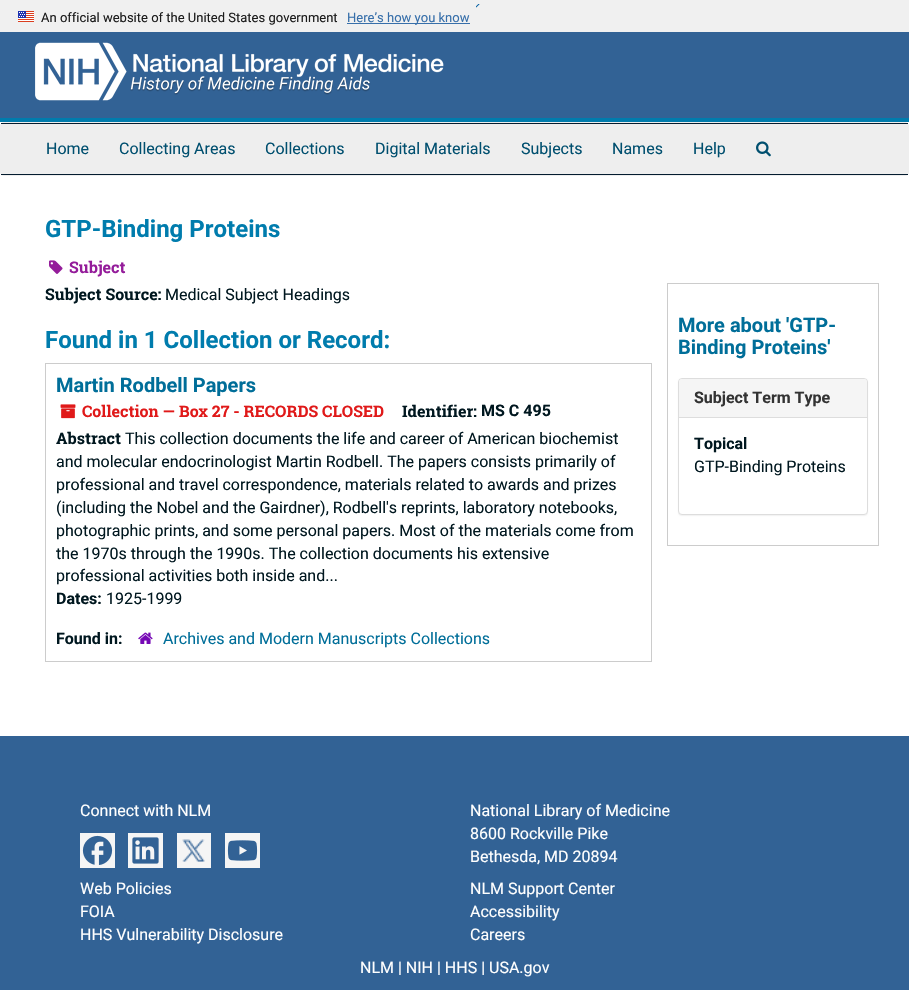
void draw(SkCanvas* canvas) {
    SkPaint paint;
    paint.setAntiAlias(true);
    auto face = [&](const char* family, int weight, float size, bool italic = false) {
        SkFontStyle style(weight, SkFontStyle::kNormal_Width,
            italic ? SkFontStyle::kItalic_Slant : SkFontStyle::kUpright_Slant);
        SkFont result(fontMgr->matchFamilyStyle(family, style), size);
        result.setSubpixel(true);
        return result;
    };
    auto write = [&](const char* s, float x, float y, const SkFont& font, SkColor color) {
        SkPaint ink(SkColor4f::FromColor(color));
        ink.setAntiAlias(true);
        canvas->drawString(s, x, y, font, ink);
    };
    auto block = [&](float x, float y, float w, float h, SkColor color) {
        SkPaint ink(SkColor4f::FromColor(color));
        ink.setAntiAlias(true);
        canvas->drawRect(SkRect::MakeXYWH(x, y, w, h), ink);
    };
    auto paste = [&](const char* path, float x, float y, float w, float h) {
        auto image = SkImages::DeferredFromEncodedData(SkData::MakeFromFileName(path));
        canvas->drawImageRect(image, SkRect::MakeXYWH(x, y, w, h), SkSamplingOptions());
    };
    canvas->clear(SK_ColorWHITE);
    block(0, 0, 909, 32, SkColorSetRGB(240, 240, 240));
    paste("pic1.png", 476, 4, 4, 4);
    paste("pic2.png", 18, 11, 16, 11);
    auto kFont1 = face("Roboto", 400, 13);
    write("An official website of the United States government", 41, 22, kFont1, SkColorSetRGB(27, 27, 27));
    block(347, 23, 123, 1, SkColorSetRGB(55, 111, 170));
    write("Here’s how you know", 347, 22, kFont1, SkColorSetRGB(55, 111, 170));
    block(0, 32, 909, 86, SkColorSetRGB(50, 98, 149));
    block(0, 118, 909, 4, SkColorSetRGB(0, 124, 173));
    paste("pic3.png", 35, 42, 409, 59);
    paint.setColor(SkColorSetRGB(238, 238, 238));
    canvas->drawRoundRect(SkRect::MakeXYWH(0.5f, 122.5f, 908, 53), 3.5f, 3.5f, paint);
    paint.setStyle(SkPaint::kStroke_Style);
    paint.setStrokeWidth(1);
    canvas->drawRoundRect(SkRect::MakeXYWH(0.5f, 122.5f, 908, 53), 3.5f, 3.5f, paint);
    block(1, 123, 907, 1, SkColorSetRGB(4, 28, 47));
    block(1, 174, 907, 1, SkColorSetRGB(4, 28, 47));
    auto kFont2 = face("Roboto", 400, 16);
    write("Home", 46, 154, kFont2, SkColorSetRGB(0, 79, 111));
    write("Collecting Areas", 119, 154, kFont2, SkColorSetRGB(0, 79, 111));
    write("Collections", 265, 154, kFont2, SkColorSetRGB(0, 79, 111));
    write("Digital Materials", 375, 154, kFont2, SkColorSetRGB(0, 79, 111));
    write("Subjects", 521, 154, kFont2, SkColorSetRGB(0, 79, 111));
    write("Names", 612, 154, kFont2, SkColorSetRGB(0, 79, 111));
    write("Help", 693, 154, kFont2, SkColorSetRGB(0, 79, 111));
    paste("pic4.png", 756, 141, 15, 16);
    auto kFont3 = face("Roboto", 700, 24);
    write("GTP-Binding Proteins", 45, 237, kFont3, SkColorSetRGB(0, 124, 173));
    paste("pic5.png", 49, 260, 14, 14);
    auto kFont4 = face("Roboto Slab", 700, 16);
    write("Subject", 69, 273, kFont4, SkColorSetRGB(148, 28, 154));
    write("Subject Source:", 45, 300, kFont4, SkColorSetRGB(0, 23, 31));
    write("Medical Subject Headings", 165, 300, kFont2, SkColorSetRGB(0, 23, 31));
    write("Found in 1 Collection or Record:", 45, 348, kFont3, SkColorSetRGB(0, 124, 173));
    paint.setColor(SkColorSetRGB(204, 204, 204));
    canvas->drawRect(SkRect::MakeXYWH(45.5f, 363.5f, 606, 298), paint);
    auto kFont5 = face("Roboto", 700, 20);
    write("Martin Rodbell Papers", 56, 392, kFont5, SkColorSetRGB(0, 110, 153));
    paste("pic6.png", 60, 404, 16, 15);
    write("Collection — Box 27 - RECORDS CLOSED", 82, 417, kFont4, SkColorSetRGB(224, 25, 25));
    write("Identifier:", 402, 417, kFont4, SkColorSetRGB(0, 23, 31));
    auto kFont6 = face("Roboto", 700, 16);
    write("MS C 495", 481, 416, kFont6, SkColorSetRGB(0, 23, 31));
    write("Abstract", 56, 444, kFont4, SkColorSetRGB(0, 23, 31));
    write("This collection documents the life and career of American biochemist", 125, 444, kFont2, SkColorSetRGB(0, 23, 31));
    write("and molecular endocrinologist Martin Rodbell. The papers consists primarily of", 56, 467, kFont2, SkColorSetRGB(0, 23, 31));
    write("professional and travel correspondence, materials related to awards and prizes", 56, 490, kFont2, SkColorSetRGB(0, 23, 31));
    write("(including the Nobel and the Gairdner), Rodbell's reprints, laboratory notebooks,", 56, 513, kFont2, SkColorSetRGB(0, 23, 31));
    write("photographic prints, and some personal papers. Most of the materials come from", 56, 536, kFont2, SkColorSetRGB(0, 23, 31));
    write("the 1970s through the 1990s. The collection documents his extensive", 56, 559, kFont2, SkColorSetRGB(0, 23, 31));
    write("professional activities both inside and...", 56, 581, kFont2, SkColorSetRGB(0, 23, 31));
    write("Dates:", 56, 604, kFont6, SkColorSetRGB(0, 23, 31));
    write("1925-1999", 106, 604, kFont2, SkColorSetRGB(0, 23, 31));
    write("Found in:", 56, 644, kFont6, SkColorSetRGB(0, 23, 31));
    paste("pic7.png", 138, 632, 15, 12);
    write("Archives and Modern Manuscripts Collections", 163, 644, kFont2, SkColorSetRGB(0, 110, 153));
    canvas->drawRect(SkRect::MakeXYWH(667.5f, 283.5f, 211, 262), paint);
    write("More about 'GTP-", 678, 332, kFont5, SkColorSetRGB(0, 110, 153));
    write("Binding Proteins'", 678, 354, kFont5, SkColorSetRGB(0, 110, 153));
    paint.setStyle(SkPaint::kFill_Style);
    paint.setColor(SkColorSetARGB(13, 0, 0, 0));
    paint.setMaskFilter(SkMaskFilter::MakeBlur(kNormal_SkBlurStyle, 0.5f));
    canvas->drawRoundRect(SkRect::MakeXYWH(678, 379, 190, 137), 4, 4, paint);
    paint.setMaskFilter(nullptr);
    paint.setColor(SK_ColorWHITE);
    canvas->drawRoundRect(SkRect::MakeXYWH(678.5f, 378.5f, 189, 136), 3.5f, 3.5f, paint);
    paint.setStyle(SkPaint::kStroke_Style);
    paint.setColor(SkColorSetRGB(221, 221, 221));
    canvas->drawRoundRect(SkRect::MakeXYWH(678.5f, 378.5f, 189, 136), 3.5f, 3.5f, paint);
    paint.setStyle(SkPaint::kFill_Style);
    paint.setColor(SkColorSetRGB(245, 245, 245));
    canvas->drawPath(SkPathBuilder().moveTo(682, 379).lineTo(864, 379).cubicTo(865.5f, 379, 867, 380.5f, 867, 382).lineTo(867, 417).lineTo(679, 417).lineTo(679, 382).cubicTo(679, 380.5f, 680.5f, 379, 682, 379).close().detach(), paint);
    write("Subject Term Type", 694, 403, kFont6, SkColorSetRGB(51, 51, 51));
    block(679, 417, 188, 1, SkColorSetRGB(221, 221, 221));
    write("Topical", 694, 449, kFont6, SkColorSetRGB(0, 23, 31));
    write("GTP-Binding Proteins", 694, 472, kFont2, SkColorSetRGB(0, 23, 31));
    block(0, 736, 909, 254, SkColorSetRGB(50, 98, 149));
    write("Connect with NLM", 80, 816, kFont2, SK_ColorWHITE);
    block(80, 833, 35, 35, SkColorSetRGB(245, 245, 245));
    paste("pic8.png", 82, 835, 31, 30);
    block(128, 833, 35, 35, SkColorSetRGB(245, 245, 245));
    paste("pic9.png", 132, 837, 27, 27);
    block(177, 833, 34, 35, SkColorSetRGB(245, 245, 245));
    paste("pic10.png", 182, 839, 23, 23);
    block(225, 833, 35, 35, SkColorSetRGB(245, 245, 245));
    paste("pic11.png", 227, 840, 31, 21);
    write("National Library of Medicine", 470, 816, kFont2, SK_ColorWHITE);
    write("8600 Rockville Pike", 470, 839, kFont2, SK_ColorWHITE);
    write("Bethesda, MD 20894", 470, 862, kFont2, SK_ColorWHITE);
    write("Web Policies", 80, 894, kFont2, SK_ColorWHITE);
    write("FOIA", 80, 917, kFont2, SK_ColorWHITE);
    write("HHS Vulnerability Disclosure", 80, 940, kFont2, SK_ColorWHITE);
    write("NLM Support Center", 470, 894, kFont2, SK_ColorWHITE);
    write("Accessibility", 470, 917, kFont2, SK_ColorWHITE);
    write("Careers", 470, 940, kFont2, SK_ColorWHITE);
    write("NLM | NIH | HHS | USA.gov", 360, 973, kFont2, SK_ColorWHITE);
}
